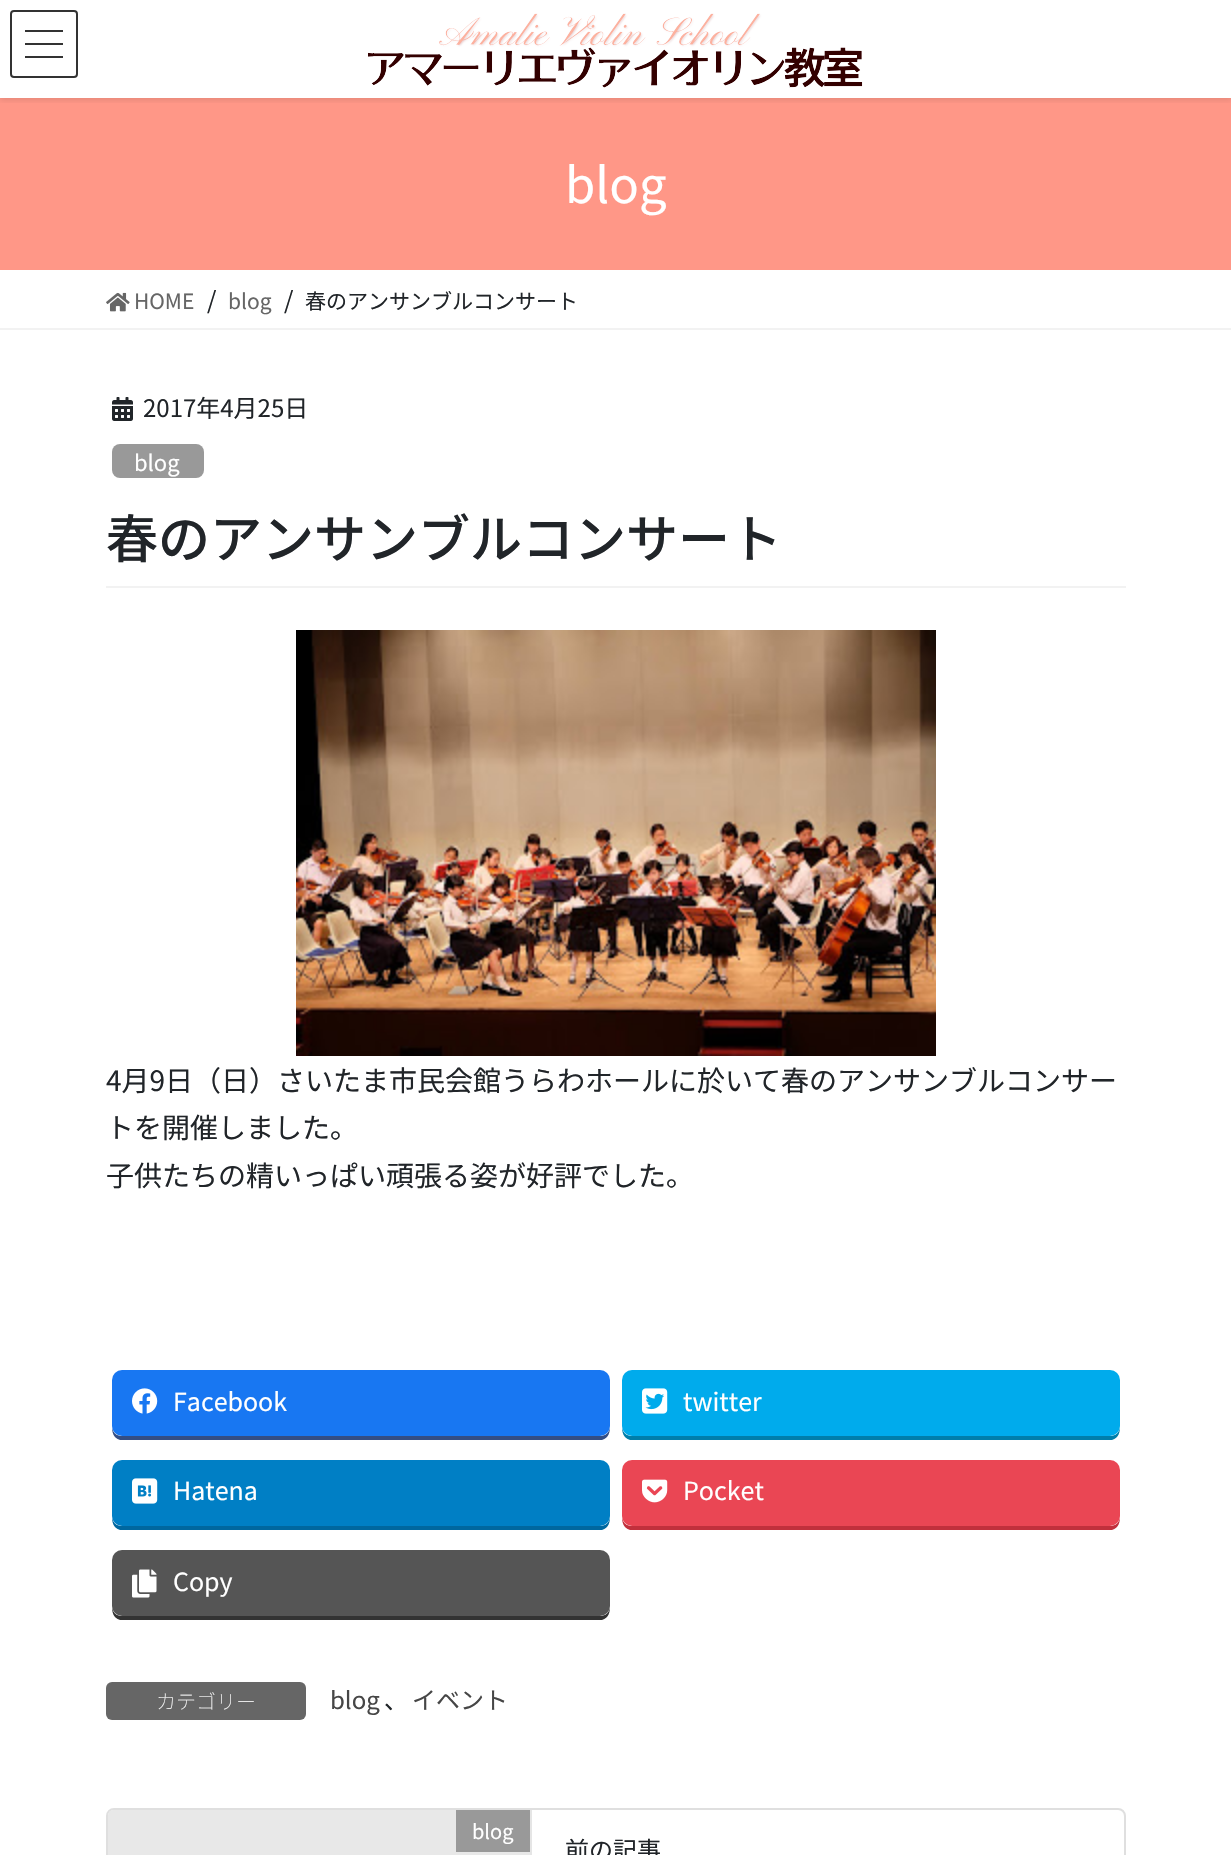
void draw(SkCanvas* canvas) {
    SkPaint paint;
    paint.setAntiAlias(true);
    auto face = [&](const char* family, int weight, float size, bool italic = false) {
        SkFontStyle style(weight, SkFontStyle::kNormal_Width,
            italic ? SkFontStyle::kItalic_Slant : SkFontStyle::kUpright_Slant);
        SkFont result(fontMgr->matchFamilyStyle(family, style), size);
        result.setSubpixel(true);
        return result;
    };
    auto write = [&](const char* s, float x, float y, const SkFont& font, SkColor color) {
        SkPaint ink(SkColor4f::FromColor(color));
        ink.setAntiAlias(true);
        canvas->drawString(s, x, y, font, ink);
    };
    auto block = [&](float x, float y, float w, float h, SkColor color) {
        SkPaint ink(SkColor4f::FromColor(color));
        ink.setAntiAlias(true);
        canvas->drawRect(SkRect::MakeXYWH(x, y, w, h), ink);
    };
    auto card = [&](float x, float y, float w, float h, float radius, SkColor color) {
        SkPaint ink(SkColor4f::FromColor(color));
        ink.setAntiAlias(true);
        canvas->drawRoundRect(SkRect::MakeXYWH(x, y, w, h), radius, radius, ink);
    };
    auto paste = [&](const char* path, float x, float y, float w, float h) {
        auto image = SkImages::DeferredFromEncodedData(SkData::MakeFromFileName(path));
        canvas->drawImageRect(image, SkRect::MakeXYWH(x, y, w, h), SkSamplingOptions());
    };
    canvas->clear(SK_ColorWHITE);
    block(0, 98, 1231, 172, SkColorSetRGB(255, 151, 135));
    canvas->save();
    canvas->clipRect(SkRect::MakeXYWH(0, 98, 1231, 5));
    paint.setColor(SkColorSetARGB(26, 0, 0, 0));
    paint.setMaskFilter(SkMaskFilter::MakeBlur(kNormal_SkBlurStyle, 3));
    canvas->drawRect(SkRect::MakeXYWH(0, 2, 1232, 98), paint);
    paint.setMaskFilter(nullptr);
    canvas->restore();
    paste("pic1.png", 368, 13, 495, 75);
    block(25, 30, 38, 2, SkColorSetRGB(51, 51, 51));
    block(25, 43, 38, 2, SkColorSetRGB(51, 51, 51));
    block(25, 56, 38, 2, SkColorSetRGB(51, 51, 51));
    paint.setStyle(SkPaint::kStroke_Style);
    paint.setStrokeWidth(2);
    paint.setColor(SkColorSetRGB(51, 51, 51));
    canvas->drawRoundRect(SkRect::MakeXYWH(11, 11, 66, 66), 3, 3, paint);
    auto kFont1 = face("Noto Sans JP", 400, 49);
    write("blog", 565, 203, kFont1, SK_ColorWHITE);
    block(0, 328, 1231, 2, SkColorSetRGB(242, 242, 242));
    paste("pic2.png", 106, 292, 24, 20);
    auto kFont2 = face("Noto Sans JP", 400, 21);
    write("HOME", 134, 309, kFont2, SkColorSetRGB(102, 102, 102));
    auto kFont3 = face("Noto Sans JP", 400, 24);
    write("/", 207, 309, kFont3, SkColorSetRGB(33, 37, 41));
    write("blog", 228, 309, kFont2, SkColorSetRGB(102, 102, 102));
    write("/", 284, 309, kFont3, SkColorSetRGB(33, 37, 41));
    write("春のアンサンブルコンサート", 305, 309, kFont2, SkColorSetRGB(33, 37, 41));
    block(106, 586, 1020, 2, SkColorSetRGB(242, 242, 242));
    paste("pic3.png", 112, 397, 21, 24);
    write("2017年4月25日", 143, 417, kFont3, SkColorSetRGB(33, 37, 41));
    card(112, 444, 92, 34, 8, SkColorSetRGB(153, 153, 153));
    auto kFont4 = face("Noto Sans JP", 400, 22);
    write("blog", 134, 471, kFont4, SK_ColorWHITE);
    auto kFont5 = face("Noto Sans JP", 500, 52);
    write("春のアンサンブルコンサート", 106, 558, kFont5, SkColorSetRGB(33, 37, 41));
    paste("pic4.png", 296, 630, 640, 426);
    auto kFont6 = face("Noto Sans JP", 400, 28);
    write("4月9日（日）さいたま市民会館うらわホールに於いて春のアンサンブルコンサー", 106, 1091, kFont6, SkColorSetRGB(33, 37, 41));
    write("トを開催しました。", 106, 1138, kFont6, SkColorSetRGB(33, 37, 41));
    write("子供たちの精いっぱい頑張る姿が好評でした。", 106, 1186, kFont6, SkColorSetRGB(33, 37, 41));
    paint.setStyle(SkPaint::kFill_Style);
    paint.setColor(SkColorSetRGB(52, 78, 132));
    canvas->drawPath(SkPathBuilder().moveTo(112, 1426).cubicTo(112, 1432, 113, 1438, 120, 1440).lineTo(602, 1440).cubicTo(609, 1438, 610, 1432, 610, 1426).cubicTo(610, 1432, 606, 1436, 600, 1436).lineTo(122, 1436).cubicTo(116, 1436, 112, 1432, 112, 1426).close().detach(), paint);
    card(112, 1370, 498, 66, 10, SkColorSetRGB(24, 119, 242));
    paste("pic5.png", 132, 1388, 26, 26);
    auto kFont7 = face("Noto Sans JP", 400, 25);
    write("Facebook", 173, 1411, kFont7, SK_ColorWHITE);
    paint.setColor(SkColorSetRGB(0, 126, 170));
    canvas->drawPath(SkPathBuilder().moveTo(622, 1426).cubicTo(622, 1432, 623, 1438, 630, 1440).lineTo(1112, 1440).cubicTo(1119, 1438, 1120, 1432, 1120, 1426).cubicTo(1120, 1432, 1116, 1436, 1110, 1436).lineTo(632, 1436).cubicTo(626, 1436, 622, 1432, 622, 1426).close().detach(), paint);
    card(622, 1370, 498, 66, 10, SkColorSetRGB(0, 171, 236));
    paste("pic6.png", 642, 1388, 26, 26);
    write("twitter", 683, 1411, kFont7, SK_ColorWHITE);
    paint.setColor(SkColorSetRGB(0, 103, 159));
    canvas->drawPath(SkPathBuilder().moveTo(112, 1516).cubicTo(112, 1522, 113, 1528, 120, 1530).lineTo(602, 1530).cubicTo(609, 1528, 610, 1522, 610, 1516).cubicTo(610, 1522, 606, 1526, 600, 1526).lineTo(122, 1526).cubicTo(116, 1526, 112, 1522, 112, 1516).close().detach(), paint);
    card(112, 1460, 498, 66, 10, SkColorSetRGB(0, 127, 197));
    paste("pic7.png", 132, 1478, 26, 26);
    write("Hatena", 173, 1500, kFont7, SK_ColorWHITE);
    paint.setColor(SkColorSetRGB(193, 48, 60));
    canvas->drawPath(SkPathBuilder().moveTo(622, 1516).cubicTo(622, 1522, 623, 1528, 630, 1530).lineTo(1112, 1530).cubicTo(1119, 1528, 1120, 1522, 1120, 1516).cubicTo(1120, 1522, 1116, 1526, 1110, 1526).lineTo(632, 1526).cubicTo(626, 1526, 622, 1522, 622, 1516).close().detach(), paint);
    card(622, 1460, 498, 66, 10, SkColorSetRGB(234, 70, 84));
    paste("pic8.png", 642, 1479, 26, 24);
    write("Pocket", 683, 1500, kFont7, SK_ColorWHITE);
    paint.setColor(SkColorSetRGB(51, 51, 51));
    canvas->drawPath(SkPathBuilder().moveTo(112, 1606).cubicTo(112, 1612, 113, 1618, 120, 1620).lineTo(602, 1620).cubicTo(609, 1618, 610, 1612, 610, 1606).cubicTo(610, 1612, 606, 1616, 600, 1616).lineTo(122, 1616).cubicTo(116, 1616, 112, 1612, 112, 1606).close().detach(), paint);
    card(112, 1550, 498, 66, 10, SkColorSetRGB(85, 85, 85));
    paste("pic9.png", 132, 1569, 25, 29);
    write("Copy", 173, 1591, kFont7, SK_ColorWHITE);
    card(106, 1682, 200, 38, 6, SkColorSetRGB(102, 102, 102));
    auto kFont8 = face("Noto Sans JP", 100, 20);
    write("カテゴリー", 156, 1709, kFont8, SK_ColorWHITE);
    write("blog", 330, 1709, kFont3, SkColorSetRGB(70, 70, 70));
    write("、", 384, 1709, kFont3, SkColorSetRGB(33, 37, 41));
    write("イベント", 412, 1709, kFont3, SkColorSetRGB(70, 70, 70));
    paint.setStyle(SkPaint::kStroke_Style);
    paint.setColor(SkColorSetRGB(223, 223, 223));
    canvas->drawRoundRect(SkRect::MakeXYWH(107, 1809, 1018, 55), 7, 7, paint);
    paste("pic10.png", 108, 1810, 422, 45);
    block(530, 1810, 2, 45, SkColorSetRGB(229, 229, 229));
    block(456, 1810, 74, 42, SkColorSetRGB(153, 153, 153));
    auto kFont9 = face("Noto Sans JP", 400, 20);
    write("blog", 472, 1839, kFont9, SK_ColorWHITE);
    write("前の記事", 565, 1859, kFont3, SkColorSetRGB(33, 37, 41));
}
